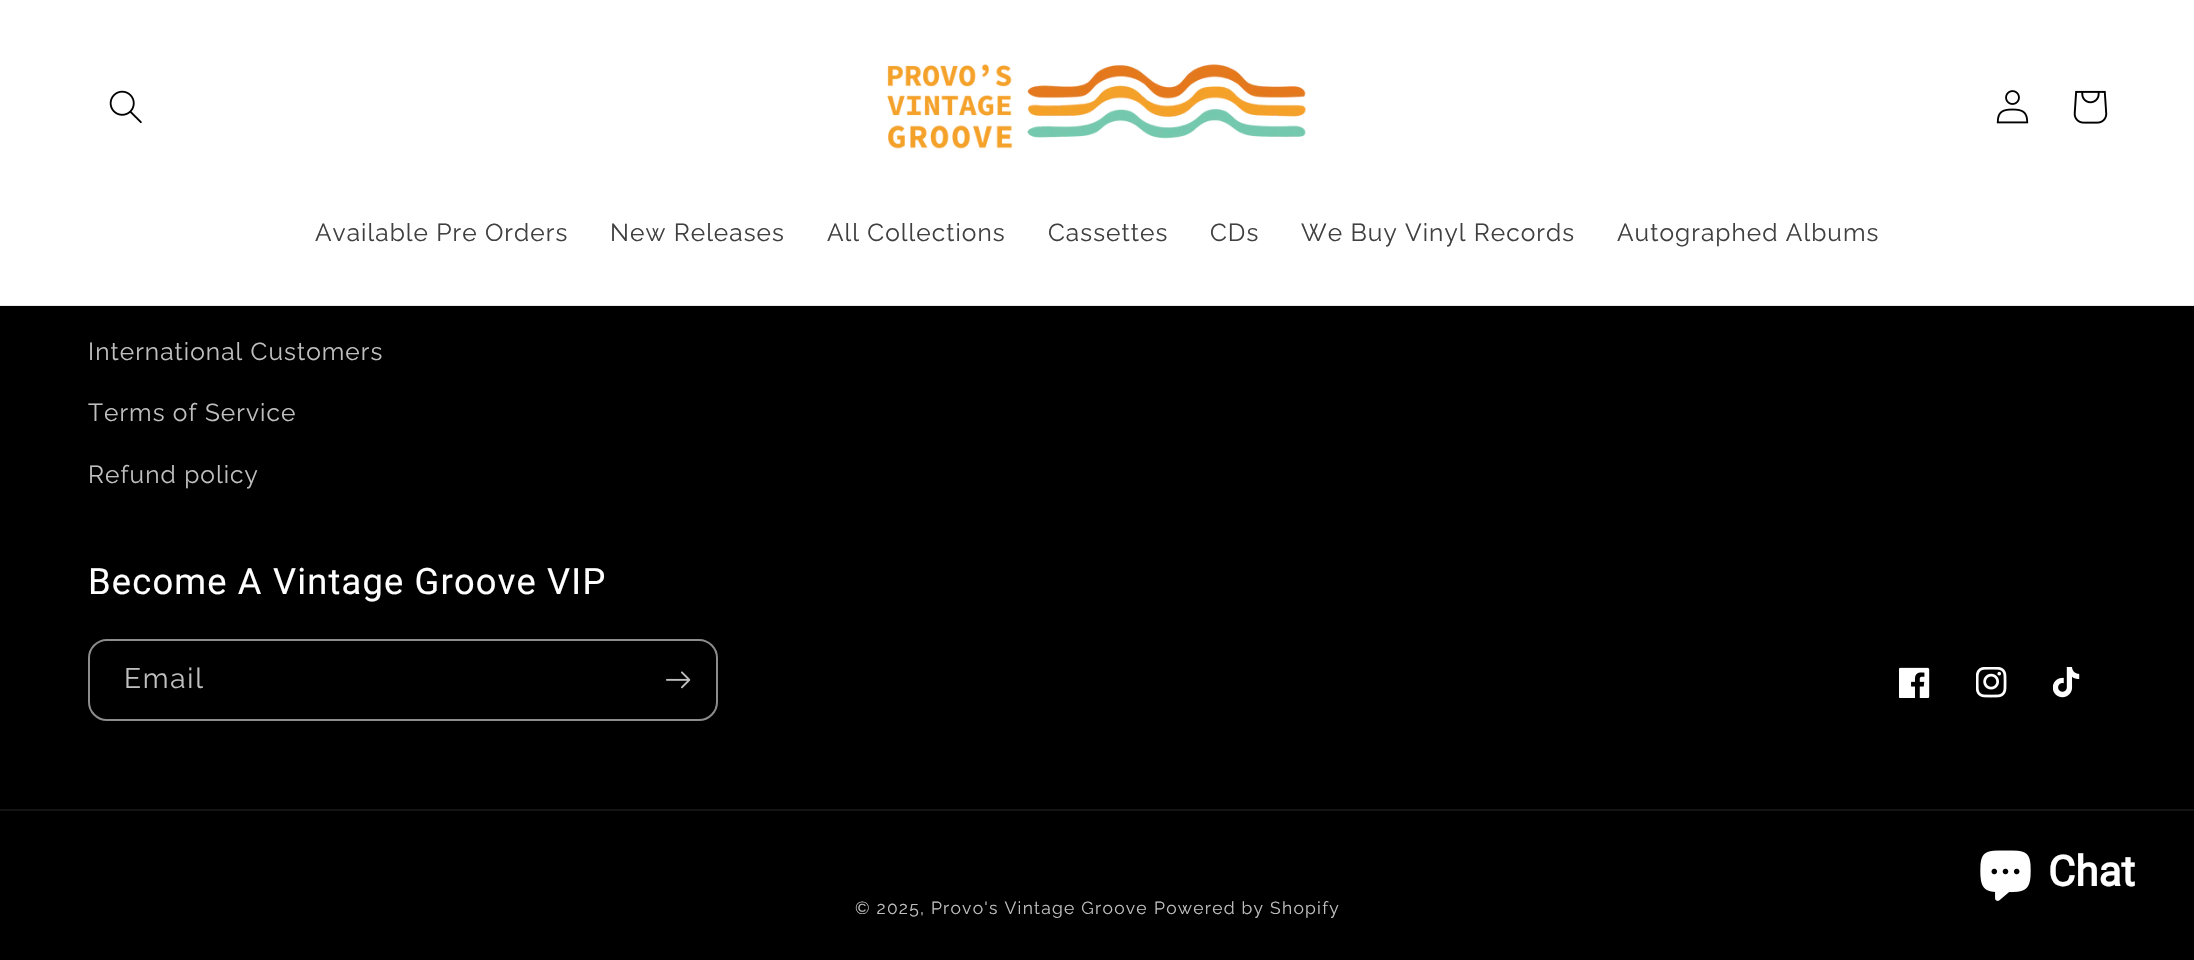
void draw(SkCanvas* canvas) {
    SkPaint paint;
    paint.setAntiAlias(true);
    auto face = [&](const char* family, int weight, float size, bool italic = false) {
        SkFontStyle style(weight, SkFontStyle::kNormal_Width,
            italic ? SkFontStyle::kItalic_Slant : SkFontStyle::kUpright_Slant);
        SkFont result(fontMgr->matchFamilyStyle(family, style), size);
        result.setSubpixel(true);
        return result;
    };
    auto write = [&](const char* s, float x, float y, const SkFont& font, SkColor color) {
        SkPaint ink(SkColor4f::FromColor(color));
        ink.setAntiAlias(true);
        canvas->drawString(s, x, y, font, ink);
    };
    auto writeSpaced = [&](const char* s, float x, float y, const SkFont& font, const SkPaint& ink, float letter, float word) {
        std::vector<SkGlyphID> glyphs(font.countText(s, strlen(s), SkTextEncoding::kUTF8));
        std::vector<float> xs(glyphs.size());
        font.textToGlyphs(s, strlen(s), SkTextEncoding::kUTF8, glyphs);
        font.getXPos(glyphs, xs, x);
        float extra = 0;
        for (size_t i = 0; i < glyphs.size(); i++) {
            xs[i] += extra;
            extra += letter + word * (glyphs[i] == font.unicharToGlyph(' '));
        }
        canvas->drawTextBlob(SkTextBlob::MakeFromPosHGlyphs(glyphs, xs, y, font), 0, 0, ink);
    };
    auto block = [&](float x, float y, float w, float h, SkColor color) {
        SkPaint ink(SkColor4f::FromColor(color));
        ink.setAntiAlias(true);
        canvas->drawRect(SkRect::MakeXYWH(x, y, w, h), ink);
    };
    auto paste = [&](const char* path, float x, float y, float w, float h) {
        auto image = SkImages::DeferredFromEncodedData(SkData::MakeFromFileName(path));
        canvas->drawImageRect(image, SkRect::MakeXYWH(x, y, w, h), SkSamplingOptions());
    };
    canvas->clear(SK_ColorBLACK);
    block(0, 0, 2194, 305, SK_ColorWHITE);
    block(0, 305, 2194, 1, SkColorSetRGB(235, 235, 235));
    paste("pic1.png", 109, 90, 33, 34);
    paste("pic2.png", 887, 64, 419, 85);
    paste("pic3.png", 1996, 90, 33, 34);
    paste("pic4.png", 2073, 90, 35, 34);
    auto kFont1 = face("Raleway", 400, 24.5f);
    paint.setColor(SkColorSetRGB(64, 64, 64));
    writeSpaced("Available Pre Orders", 315, 241, kFont1, paint, 1.05f, 0);
    writeSpaced("New Releases", 610, 241, kFont1, paint, 1.05f, 0);
    writeSpaced("All Collections", 827, 241, kFont1, paint, 1.05f, 0);
    writeSpaced("Cassettes", 1048, 241, kFont1, paint, 1.05f, 0);
    writeSpaced("CDs", 1210, 241, kFont1, paint, 1.05f, 0);
    writeSpaced("We Buy Vinyl Records", 1301, 241, kFont1, paint, 1.05f, 0);
    writeSpaced("Autographed Albums", 1617, 241, kFont1, paint, 1.05f, 0);
    paint.setColor(SkColorSetRGB(191, 191, 191));
    writeSpaced("International Customers", 88, 360, kFont1, paint, 1.05f, 0);
    writeSpaced("Terms of Service", 88, 421, kFont1, paint, 1.05f, 0);
    writeSpaced("Refund policy", 88, 483, kFont1, paint, 1.05f, 0);
    auto kFont2 = face("Roboto", 400, 36.25f);
    paint.setColor(SK_ColorWHITE);
    writeSpaced("Become A Vintage Groove VIP", 88, 594, kFont2, paint, 1.2f, 0);
    paint.setStyle(SkPaint::kStroke_Style);
    paint.setStrokeWidth(2);
    paint.setColor(SkColorSetRGB(140, 140, 140));
    canvas->drawRoundRect(SkRect::MakeXYWH(89, 640, 628, 80), 18, 18, paint);
    auto kFont3 = face("Raleway", 400, 28);
    paint.setStyle(SkPaint::kFill_Style);
    paint.setColor(SkColorSetRGB(191, 191, 191));
    writeSpaced("Email", 124, 688, kFont3, paint, 1.75f, 0);
    paste("pic5.png", 666, 671, 25, 18);
    paste("pic6.png", 1899, 667, 31, 31);
    paste("pic7.png", 1976, 667, 31, 31);
    paste("pic8.png", 2053, 667, 27, 31);
    block(0, 809, 2194, 2, SkColorSetRGB(20, 20, 20));
    auto kFont4 = face("Raleway", 400, 17.5f);
    writeSpaced("© 2025, Provo's Vintage Groove", 855, 914, kFont4, paint, 1.25f, 0);
    writeSpaced("Powered by Shopify", 1154, 914, kFont4, paint, 1.25f, 0);
    paste("pic9.png", 1980, 850, 51, 51);
    auto kFont5 = face("Roboto", 700, 42);
    write("Chat", 2048, 886, kFont5, SK_ColorWHITE);
}
